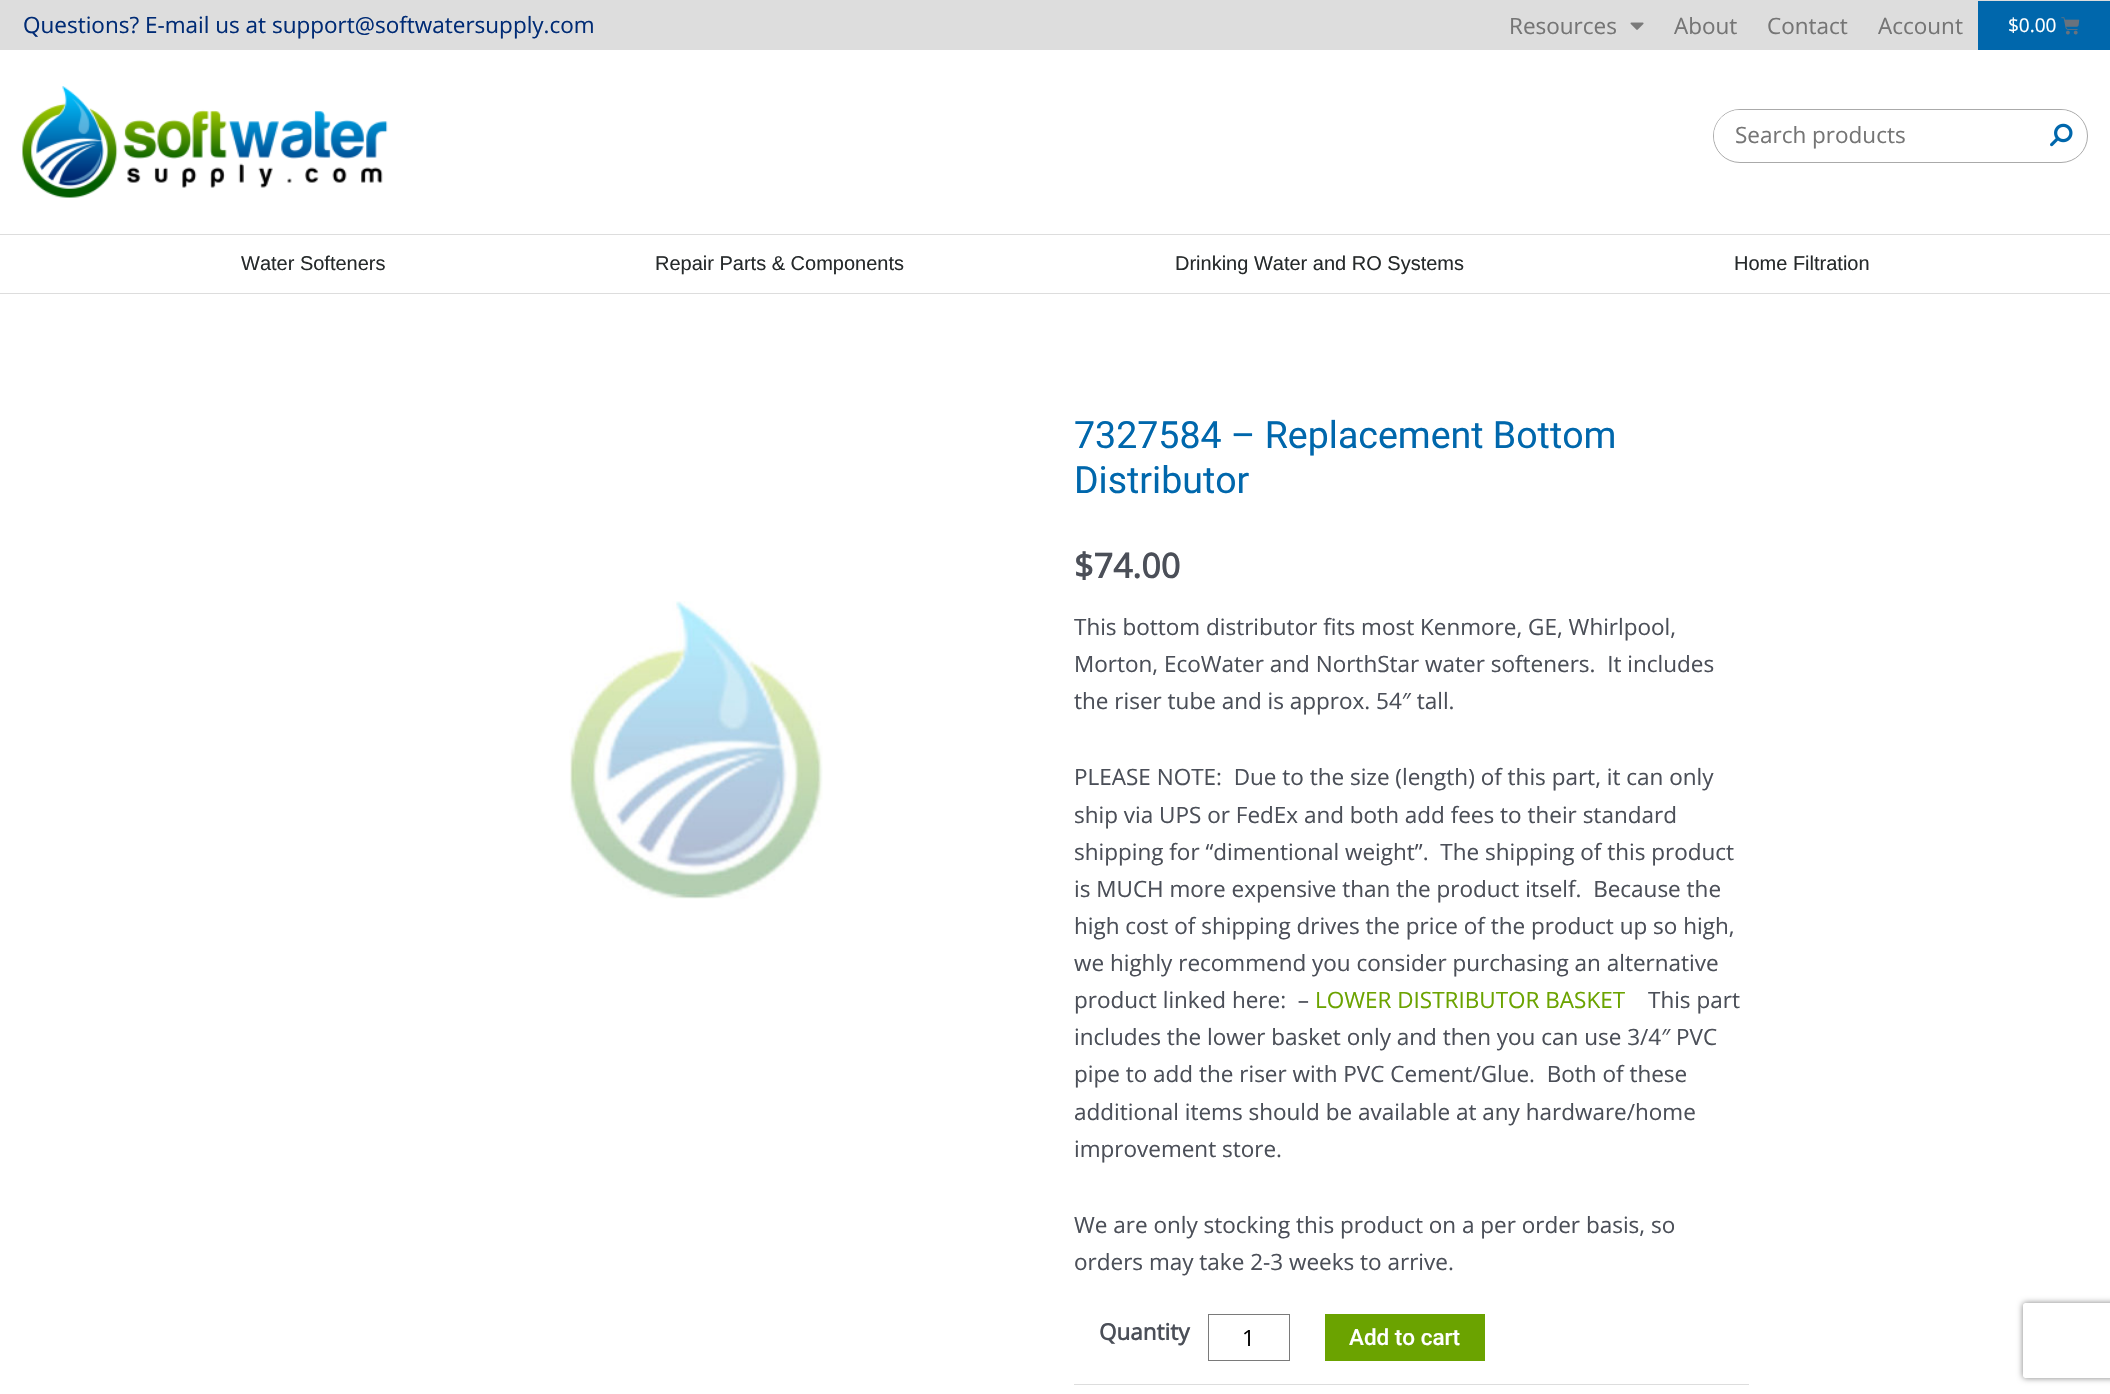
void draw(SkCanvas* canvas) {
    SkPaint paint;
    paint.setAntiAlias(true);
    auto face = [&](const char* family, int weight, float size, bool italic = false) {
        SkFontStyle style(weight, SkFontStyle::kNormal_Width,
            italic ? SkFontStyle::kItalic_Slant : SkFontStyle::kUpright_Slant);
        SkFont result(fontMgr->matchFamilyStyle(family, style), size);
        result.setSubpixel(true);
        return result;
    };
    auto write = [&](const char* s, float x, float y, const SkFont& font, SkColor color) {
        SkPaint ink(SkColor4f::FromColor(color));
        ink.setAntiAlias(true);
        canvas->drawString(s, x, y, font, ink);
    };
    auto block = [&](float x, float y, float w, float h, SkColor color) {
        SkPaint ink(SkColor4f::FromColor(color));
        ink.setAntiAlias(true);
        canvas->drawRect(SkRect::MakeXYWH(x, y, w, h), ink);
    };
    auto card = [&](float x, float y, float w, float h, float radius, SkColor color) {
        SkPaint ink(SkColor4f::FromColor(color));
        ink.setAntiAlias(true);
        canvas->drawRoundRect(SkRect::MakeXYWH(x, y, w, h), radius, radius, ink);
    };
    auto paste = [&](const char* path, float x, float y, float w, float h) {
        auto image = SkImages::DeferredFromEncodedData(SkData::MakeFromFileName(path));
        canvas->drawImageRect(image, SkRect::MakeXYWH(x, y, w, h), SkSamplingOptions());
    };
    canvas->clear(SK_ColorWHITE);
    block(0, 0, 2110, 50, SkColorSetRGB(221, 221, 221));
    auto kFont1 = face("Open Sans", 400, 22.5f);
    write("Questions? E-mail us at support@softwatersupply.com", 23, 33, kFont1, SkColorSetRGB(0, 43, 117));
    write("Resources", 1509, 34, kFont1, SkColorSetRGB(117, 117, 117));
    paste("pic1.png", 1630, 22, 14, 8);
    write("About", 1674, 34, kFont1, SkColorSetRGB(117, 117, 117));
    write("Contact", 1767, 34, kFont1, SkColorSetRGB(117, 117, 117));
    write("Account", 1878, 34, kFont1, SkColorSetRGB(117, 117, 117));
    block(1978, 1, 132, 49, SkColorSetRGB(0, 103, 172));
    auto kFont2 = face("Open Sans", 400, 19);
    write("$0.00", 2008, 32, kFont2, SK_ColorWHITE);
    paste("pic2.png", 2061, 17, 19, 18);
    block(0, 234, 2110, 1, SkColorSetRGB(221, 221, 221));
    paste("pic3.png", 22, 86, 366, 112);
    paint.setStyle(SkPaint::kStroke_Style);
    paint.setStrokeWidth(1);
    paint.setColor(SkColorSetRGB(170, 170, 170));
    canvas->drawRoundRect(SkRect::MakeXYWH(1713.5f, 109.5f, 374, 53), 26.5f, 26.5f, paint);
    card(1714, 110, 306, 51, 25.5f, SK_ColorWHITE);
    write("Search products", 1735, 143, kFont1, SkColorSetRGB(117, 117, 117));
    paint.setStyle(SkPaint::kFill_Style);
    paint.setColor(SK_ColorWHITE);
    canvas->drawCircle(2060.5f, 135.5f, 25.5f, paint);
    paste("pic4.png", 2050, 123, 23, 24);
    block(0, 293, 2110, 1, SkColorSetRGB(221, 221, 221));
    auto kFont3 = face("Liberation Sans", 400, 20);
    write("Water Softeners", 241, 270, kFont3, SkColorSetRGB(38, 42, 43));
    write("Repair Parts & Components", 655, 270, kFont3, SkColorSetRGB(38, 42, 43));
    write("Drinking Water and RO Systems", 1175, 270, kFont3, SkColorSetRGB(38, 42, 43));
    write("Home Filtration", 1734, 270, kFont3, SkColorSetRGB(38, 42, 43));
    paste("pic5.png", 569, 601, 254, 298);
    auto kFont4 = face("Roboto", 400, 37.5f);
    write("7327584 – Replacement Bottom", 1074, 448, kFont4, SkColorSetRGB(0, 103, 172));
    write("Distributor", 1074, 493, kFont4, SkColorSetRGB(0, 103, 172));
    auto kFont5 = face("Open Sans", 700, 34);
    write("$74.00", 1074, 578, kFont5, SkColorSetRGB(75, 79, 88));
    write("This bottom distributor fits most Kenmore, GE, Whirlpool,", 1074, 635, kFont1, SkColorSetRGB(75, 79, 88));
    write("Morton, EcoWater and NorthStar water softeners.  It includes", 1074, 672, kFont1, SkColorSetRGB(75, 79, 88));
    write("the riser tube and is approx. 54″ tall.", 1074, 709, kFont1, SkColorSetRGB(75, 79, 88));
    write("PLEASE NOTE:  Due to the size (length) of this part, it can only", 1074, 785, kFont1, SkColorSetRGB(75, 79, 88));
    write("ship via UPS or FedEx and both add fees to their standard", 1074, 823, kFont1, SkColorSetRGB(75, 79, 88));
    write("shipping for “dimentional weight”.  The shipping of this product", 1074, 860, kFont1, SkColorSetRGB(75, 79, 88));
    write("is MUCH more expensive than the product itself.  Because the", 1074, 897, kFont1, SkColorSetRGB(75, 79, 88));
    write("high cost of shipping drives the price of the product up so high,", 1074, 934, kFont1, SkColorSetRGB(75, 79, 88));
    write("we highly recommend you consider purchasing an alternative", 1074, 971, kFont1, SkColorSetRGB(75, 79, 88));
    write("product linked here:  –", 1074, 1008, kFont1, SkColorSetRGB(75, 79, 88));
    write("LOWER DISTRIBUTOR BASKET", 1315, 1008, kFont1, SkColorSetRGB(107, 163, 0));
    write("This part", 1648, 1008, kFont1, SkColorSetRGB(75, 79, 88));
    write("includes the lower basket only and then you can use 3/4″ PVC", 1074, 1045, kFont1, SkColorSetRGB(75, 79, 88));
    write("pipe to add the riser with PVC Cement/Glue.  Both of these", 1074, 1082, kFont1, SkColorSetRGB(75, 79, 88));
    write("additional items should be available at any hardware/home", 1074, 1120, kFont1, SkColorSetRGB(75, 79, 88));
    write("improvement store.", 1074, 1157, kFont1, SkColorSetRGB(75, 79, 88));
    write("We are only stocking this product on a per order basis, so", 1074, 1233, kFont1, SkColorSetRGB(75, 79, 88));
    write("orders may take 2-3 weeks to arrive.", 1074, 1270, kFont1, SkColorSetRGB(75, 79, 88));
    auto kFont6 = face("Open Sans", 700, 22.5f);
    write("Quantity", 1099, 1340, kFont6, SkColorSetRGB(75, 79, 88));
    paint.setStyle(SkPaint::kStroke_Style);
    paint.setColor(SkColorSetRGB(122, 122, 122));
    canvas->drawRect(SkRect::MakeXYWH(1208.5f, 1314.5f, 81, 46), paint);
    write("1", 1242, 1346, kFont1, SK_ColorBLACK);
    block(1325, 1314, 160, 47, SkColorSetRGB(107, 163, 0));
    auto kFont7 = face("Roboto", 500, 22.5f);
    write("Add to cart", 1349, 1345, kFont7, SK_ColorWHITE);
    block(1074, 1384, 675, 1, SkColorSetRGB(221, 221, 221));
    canvas->save();
    canvas->clipPath(SkPathBuilder(SkPathFillType::kEvenOdd).moveTo(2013, 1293).lineTo(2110, 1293).lineTo(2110, 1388).lineTo(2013, 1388).close().moveTo(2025.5f, 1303).lineTo(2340.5f, 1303).cubicTo(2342, 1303, 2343, 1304, 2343, 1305.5f).lineTo(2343, 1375.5f).cubicTo(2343, 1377, 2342, 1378, 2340.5f, 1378).lineTo(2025.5f, 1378).cubicTo(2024, 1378, 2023, 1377, 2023, 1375.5f).lineTo(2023, 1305.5f).cubicTo(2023, 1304, 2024, 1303, 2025.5f, 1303).close().detach(), true);
    paint.setStyle(SkPaint::kFill_Style);
    paint.setColor(SkColorSetRGB(128, 128, 128));
    paint.setMaskFilter(SkMaskFilter::MakeBlur(kNormal_SkBlurStyle, 3));
    canvas->drawRoundRect(SkRect::MakeXYWH(2023, 1303, 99, 75), 2.5f, 2.5f, paint);
    paint.setMaskFilter(nullptr);
    canvas->restore();
}
